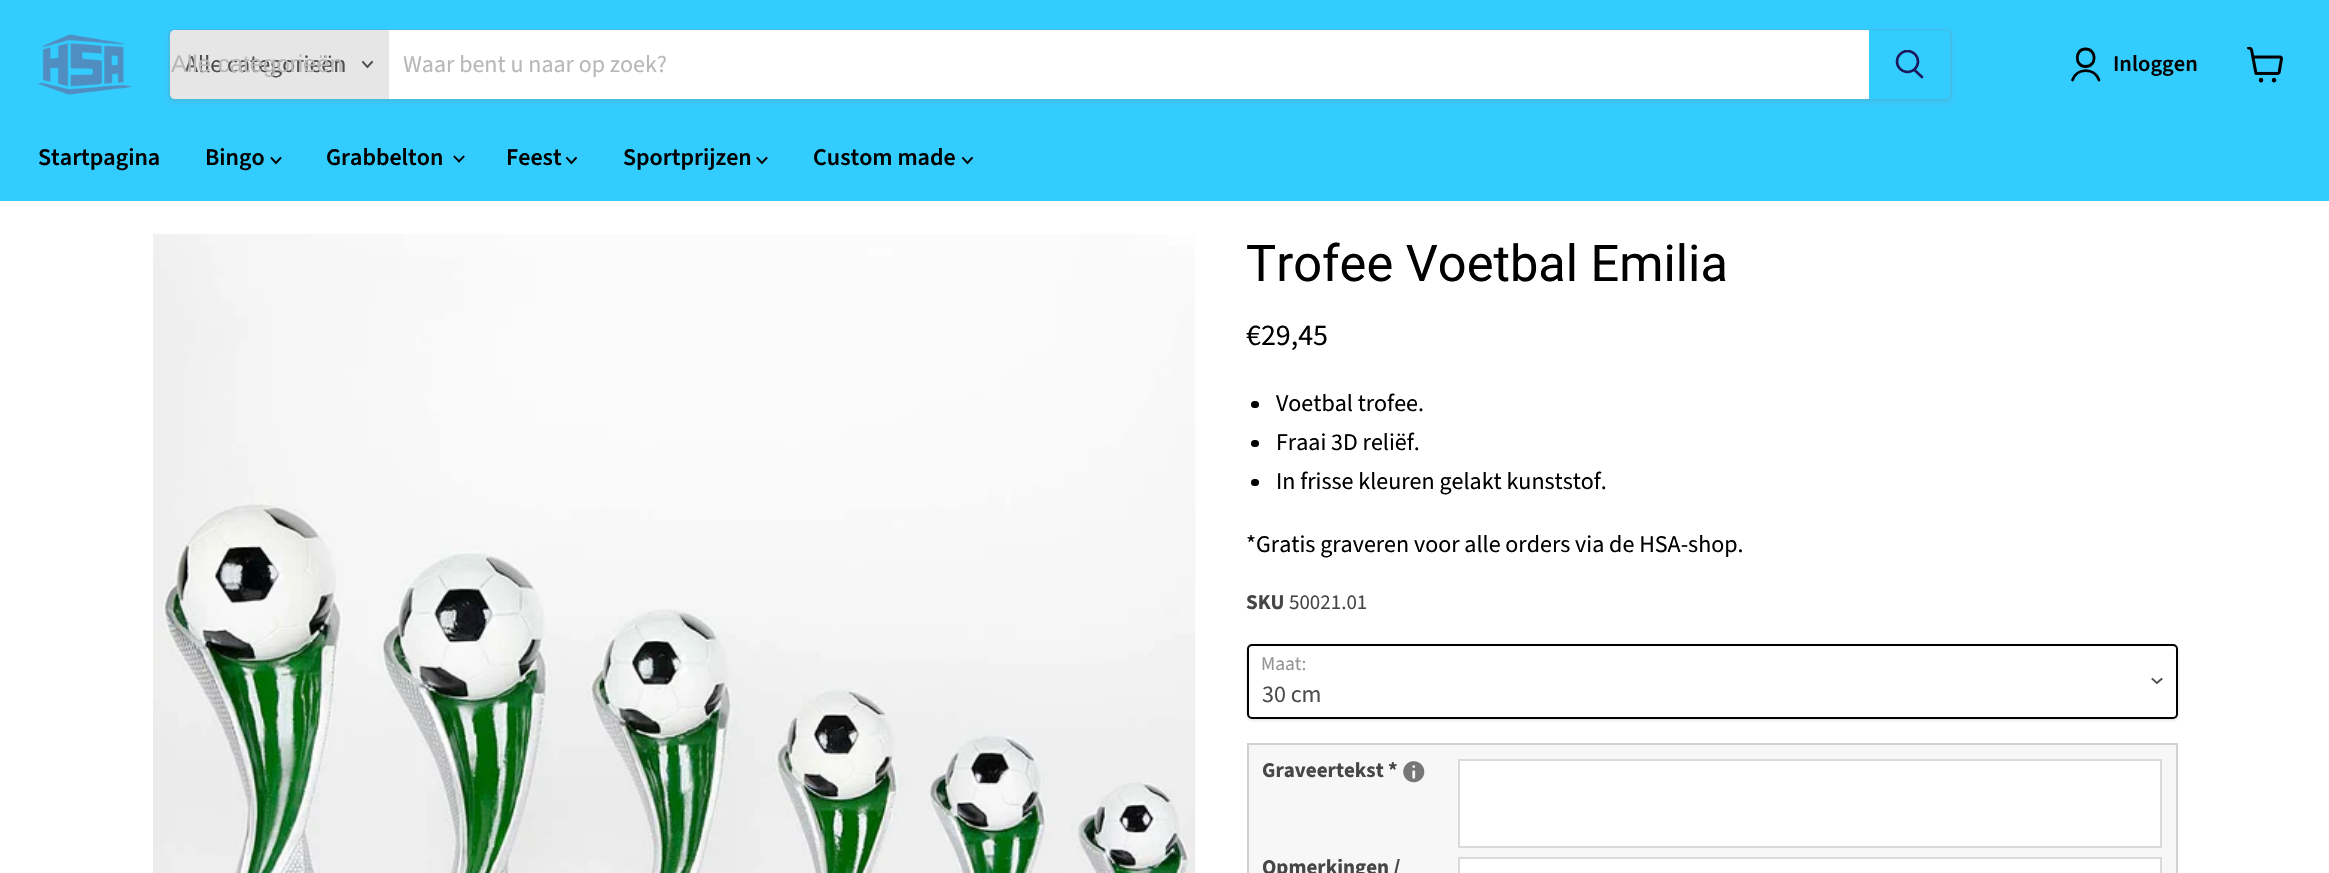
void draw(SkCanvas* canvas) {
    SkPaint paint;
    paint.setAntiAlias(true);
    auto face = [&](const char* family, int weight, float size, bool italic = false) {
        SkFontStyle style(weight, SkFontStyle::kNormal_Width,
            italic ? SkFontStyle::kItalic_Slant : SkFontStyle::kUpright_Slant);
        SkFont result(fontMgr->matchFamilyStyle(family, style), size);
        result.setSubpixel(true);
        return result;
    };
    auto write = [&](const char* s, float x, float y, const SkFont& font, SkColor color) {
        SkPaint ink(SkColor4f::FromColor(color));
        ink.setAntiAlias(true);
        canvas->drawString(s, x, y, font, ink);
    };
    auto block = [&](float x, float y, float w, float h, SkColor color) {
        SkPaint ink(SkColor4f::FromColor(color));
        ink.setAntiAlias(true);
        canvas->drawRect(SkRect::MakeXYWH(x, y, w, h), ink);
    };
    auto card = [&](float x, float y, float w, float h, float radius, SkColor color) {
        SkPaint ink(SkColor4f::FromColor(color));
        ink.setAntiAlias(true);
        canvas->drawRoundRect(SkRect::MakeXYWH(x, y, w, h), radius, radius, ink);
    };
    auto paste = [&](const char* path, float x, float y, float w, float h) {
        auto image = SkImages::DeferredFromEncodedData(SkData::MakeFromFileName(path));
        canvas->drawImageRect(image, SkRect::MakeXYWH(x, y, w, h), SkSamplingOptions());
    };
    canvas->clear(SK_ColorWHITE);
    block(0, 0, 2329, 201, SkColorSetRGB(51, 204, 255));
    paste("pic1.png", 37, 34, 95, 61);
    canvas->save();
    canvas->clipPath(SkPathBuilder(SkPathFillType::kEvenOdd).moveTo(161, 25).lineTo(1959, 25).lineTo(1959, 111).lineTo(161, 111).close().moveTo(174, 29).lineTo(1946, 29).cubicTo(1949.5f, 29, 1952, 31.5f, 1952, 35).lineTo(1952, 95).cubicTo(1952, 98.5f, 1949.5f, 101, 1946, 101).lineTo(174, 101).cubicTo(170.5f, 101, 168, 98.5f, 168, 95).lineTo(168, 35).cubicTo(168, 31.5f, 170.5f, 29, 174, 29).close().detach(), true);
    paint.setColor(SkColorSetARGB(28, 128, 128, 128));
    paint.setMaskFilter(SkMaskFilter::MakeBlur(kNormal_SkBlurStyle, 2));
    canvas->drawRoundRect(SkRect::MakeXYWH(168, 32, 1784, 72), 6, 6, paint);
    paint.setMaskFilter(nullptr);
    canvas->restore();
    paint.setStyle(SkPaint::kStroke_Style);
    paint.setStrokeWidth(2);
    paint.setColor(SkColorSetARGB(51, 128, 128, 128));
    canvas->drawRoundRect(SkRect::MakeXYWH(169, 30, 1782, 70), 5, 5, paint);
    paint.setStyle(SkPaint::kFill_Style);
    paint.setColor(SkColorSetRGB(230, 230, 230));
    canvas->drawPath(SkPathBuilder().moveTo(175, 30).lineTo(389, 30).lineTo(389, 99).lineTo(175, 99).cubicTo(172, 99, 170, 97, 170, 94).lineTo(170, 35).cubicTo(170, 32, 172, 30, 175, 30).close().detach(), paint);
    auto kFont1 = face("Source Sans Pro", 400, 24);
    write("Alle categorieën", 185, 72, kFont1, SkColorSetRGB(77, 77, 77));
    auto kFont2 = face("Liberation Sans", 400, 24);
    write("Alle categorieën", 171, 72, kFont2, SkColorSetRGB(184, 184, 184));
    paint.setStyle(SkPaint::kStroke_Style);
    paint.setStrokeWidth(1.9f);
    paint.setStrokeCap(SkPaint::kSquare_Cap);
    paint.setColor(SkColorSetRGB(77, 77, 77));
    canvas->drawPath(SkPathBuilder().moveTo(367.5f, 67).lineTo(372, 62).moveTo(367.5f, 67).lineTo(363, 62).detach(), paint);
    block(389, 30, 1480, 69, SK_ColorWHITE);
    canvas->save();
    canvas->clipRect(SkRect::MakeXYWH(404, 48, 1450, 33));
    write("Waar bent u naar op zoek?", 403, 72, kFont1, SkColorSetRGB(184, 184, 184));
    canvas->restore();
    paint.setStyle(SkPaint::kFill_Style);
    paint.setColor(SkColorSetRGB(51, 204, 255));
    canvas->drawPath(SkPathBuilder().moveTo(1870, 31).lineTo(1945, 31).cubicTo(1947, 31, 1949, 33, 1949, 35).lineTo(1949, 94).cubicTo(1949, 96, 1947, 98, 1945, 98).lineTo(1870, 98).close().detach(), paint);
    paint.setStyle(SkPaint::kStroke_Style);
    paint.setStrokeWidth(2);
    paint.setStrokeCap(SkPaint::kButt_Cap);
    canvas->drawPath(SkPathBuilder().moveTo(1870, 31).lineTo(1945, 31).cubicTo(1947, 31, 1949, 33, 1949, 35).lineTo(1949, 94).cubicTo(1949, 96, 1947, 98, 1945, 98).lineTo(1870, 98).close().detach(), paint);
    paint.setStrokeWidth(2.6f);
    paint.setStrokeCap(SkPaint::kRound_Cap);
    paint.setColor(SkColorSetRGB(27, 23, 93));
    canvas->drawPath(SkPathBuilder().moveTo(1922, 77).lineTo(1914.5f, 70).detach(), paint);
    canvas->save();
    canvas->clipRect(SkRect::MakeXYWH(1895, 50, 30, 31));
    paint.setStrokeCap(SkPaint::kButt_Cap);
    canvas->drawCircle(1907.5f, 61.5f, 10.5f, paint);
    canvas->restore();
    paint.setStrokeWidth(2.8f);
    paint.setStrokeCap(SkPaint::kRound_Cap);
    paint.setStrokeJoin(SkPaint::kRound_Join);
    paint.setColor(SK_ColorBLACK);
    canvas->drawPath(SkPathBuilder().moveTo(2085.5f, 66.5f).cubicTo(2097, 66.5f, 2097, 49, 2085.5f, 49).cubicTo(2074.5f, 49, 2074.5f, 66.5f, 2085.5f, 66.5f).close().moveTo(2099, 80).cubicTo(2094.5f, 67.5f, 2077, 67.5f, 2072.5f, 80).detach(), paint);
    auto kFont3 = face("Source Sans Pro", 600, 22.5f);
    write("Inloggen", 2113, 71, kFont3, SK_ColorBLACK);
    paste("pic2.png", 2247, 47, 36, 36);
    auto kFont4 = face("Source Sans Pro", 600, 24);
    write("Startpagina", 38, 165, kFont4, SK_ColorBLACK);
    write("Bingo", 205, 165, kFont4, SK_ColorBLACK);
    paint.setStrokeWidth(1.9f);
    paint.setStrokeCap(SkPaint::kSquare_Cap);
    paint.setStrokeJoin(SkPaint::kMiter_Join);
    canvas->drawPath(SkPathBuilder().moveTo(276, 163).lineTo(280.5f, 158).moveTo(276, 163).lineTo(271.5f, 158).detach(), paint);
    write("Grabbelton", 326, 165, kFont4, SK_ColorBLACK);
    paste("pic3.png", 453, 155, 12, 8);
    write("Feest", 506, 165, kFont4, SK_ColorBLACK);
    canvas->drawPath(SkPathBuilder().moveTo(571.5f, 163).lineTo(576, 158).moveTo(571.5f, 163).lineTo(567, 158).detach(), paint);
    write("Sportprijzen", 623, 165, kFont4, SK_ColorBLACK);
    canvas->drawPath(SkPathBuilder().moveTo(762, 163).lineTo(766.5f, 158).moveTo(762, 163).lineTo(757.5f, 158).detach(), paint);
    write("Custom made", 813, 165, kFont4, SK_ColorBLACK);
    canvas->drawPath(SkPathBuilder().moveTo(967.5f, 163).lineTo(972, 158).moveTo(967.5f, 163).lineTo(963, 158).detach(), paint);
    paste("pic4.png", 153, 234, 1043, 639);
    auto kFont5 = face("Roboto", 400, 50.5f);
    write("Trofee Voetbal Emilia", 1246, 281, kFont5, SK_ColorBLACK);
    auto kFont6 = face("Source Sans Pro", 400, 30);
    write("€29,45", 1246, 345, kFont6, SK_ColorBLACK);
    card(1251, 401, 8, 7, 3.5f, SK_ColorBLACK);
    write("Voetbal trofee.", 1276, 411, kFont1, SK_ColorBLACK);
    card(1251, 440, 8, 7, 3.5f, SK_ColorBLACK);
    write("Fraai 3D reliëf.", 1276, 450, kFont1, SK_ColorBLACK);
    card(1251, 479, 8, 7, 3.5f, SK_ColorBLACK);
    write("In frisse kleuren gelakt kunststof.", 1276, 489, kFont1, SK_ColorBLACK);
    write("*Gratis graveren voor alle orders via de HSA-shop.", 1246, 552, kFont1, SK_ColorBLACK);
    auto kFont7 = face("Source Sans Pro", 700, 21);
    write("SKU", 1246, 609, kFont7, SkColorSetRGB(70, 70, 70));
    auto kFont8 = face("Source Sans Pro", 400, 21);
    write("50021.01", 1289, 609, kFont8, SkColorSetRGB(70, 70, 70));
    paint.setStyle(SkPaint::kFill_Style);
    paint.setColor(SkColorSetARGB(38, 0, 0, 0));
    paint.setMaskFilter(SkMaskFilter::MakeBlur(kNormal_SkBlurStyle, 1.5f));
    canvas->drawRoundRect(SkRect::MakeXYWH(1247, 645, 931, 75), 5, 5, paint);
    paint.setMaskFilter(nullptr);
    paint.setColor(SK_ColorWHITE);
    canvas->drawRoundRect(SkRect::MakeXYWH(1248, 645, 929, 73), 4, 4, paint);
    paint.setStyle(SkPaint::kStroke_Style);
    paint.setStrokeWidth(2);
    paint.setStrokeCap(SkPaint::kButt_Cap);
    paint.setColor(SK_ColorBLACK);
    canvas->drawRoundRect(SkRect::MakeXYWH(1248, 645, 929, 73), 4, 4, paint);
    auto kFont9 = face("Source Sans Pro", 400, 19.5f);
    write("Maat:", 1261, 670, kFont9, SkColorSetRGB(148, 148, 148));
    paint.setStrokeWidth(1.9f);
    paint.setStrokeCap(SkPaint::kSquare_Cap);
    paint.setColor(SkColorSetRGB(77, 77, 77));
    canvas->drawPath(SkPathBuilder().moveTo(2157, 683).lineTo(2161.5f, 679).moveTo(2157, 683).lineTo(2152.5f, 679).detach(), paint);
    write("30 cm", 1262, 702, kFont1, SkColorSetRGB(77, 77, 77));
    paint.setStyle(SkPaint::kFill_Style);
    paint.setColor(SkColorSetRGB(247, 247, 247));
    canvas->drawRect(SkRect::MakeXYWH(1248, 744, 929, 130), paint);
    paint.setStyle(SkPaint::kStroke_Style);
    paint.setStrokeWidth(2);
    paint.setStrokeCap(SkPaint::kButt_Cap);
    paint.setColor(SkColorSetRGB(209, 209, 209));
    canvas->drawRect(SkRect::MakeXYWH(1248, 744, 929, 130), paint);
    write("Graveertekst *", 1262, 777, kFont7, SkColorSetRGB(70, 70, 70));
    paste("pic5.png", 1403, 761, 22, 22);
    paint.setStyle(SkPaint::kFill_Style);
    paint.setColor(SK_ColorWHITE);
    canvas->drawRect(SkRect::MakeXYWH(1459, 760, 702, 87), paint);
    paint.setStyle(SkPaint::kStroke_Style);
    paint.setColor(SkColorSetRGB(218, 218, 218));
    canvas->drawRect(SkRect::MakeXYWH(1459, 760, 702, 87), paint);
    write("Opmerkingen /", 1262, 874, kFont7, SkColorSetRGB(70, 70, 70));
    paint.setStyle(SkPaint::kFill_Style);
    paint.setColor(SK_ColorWHITE);
    canvas->drawRect(SkRect::MakeXYWH(1459, 858, 702, 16), paint);
    paint.setStyle(SkPaint::kStroke_Style);
    paint.setColor(SkColorSetRGB(218, 218, 218));
    canvas->drawRect(SkRect::MakeXYWH(1459, 858, 702, 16), paint);
}
